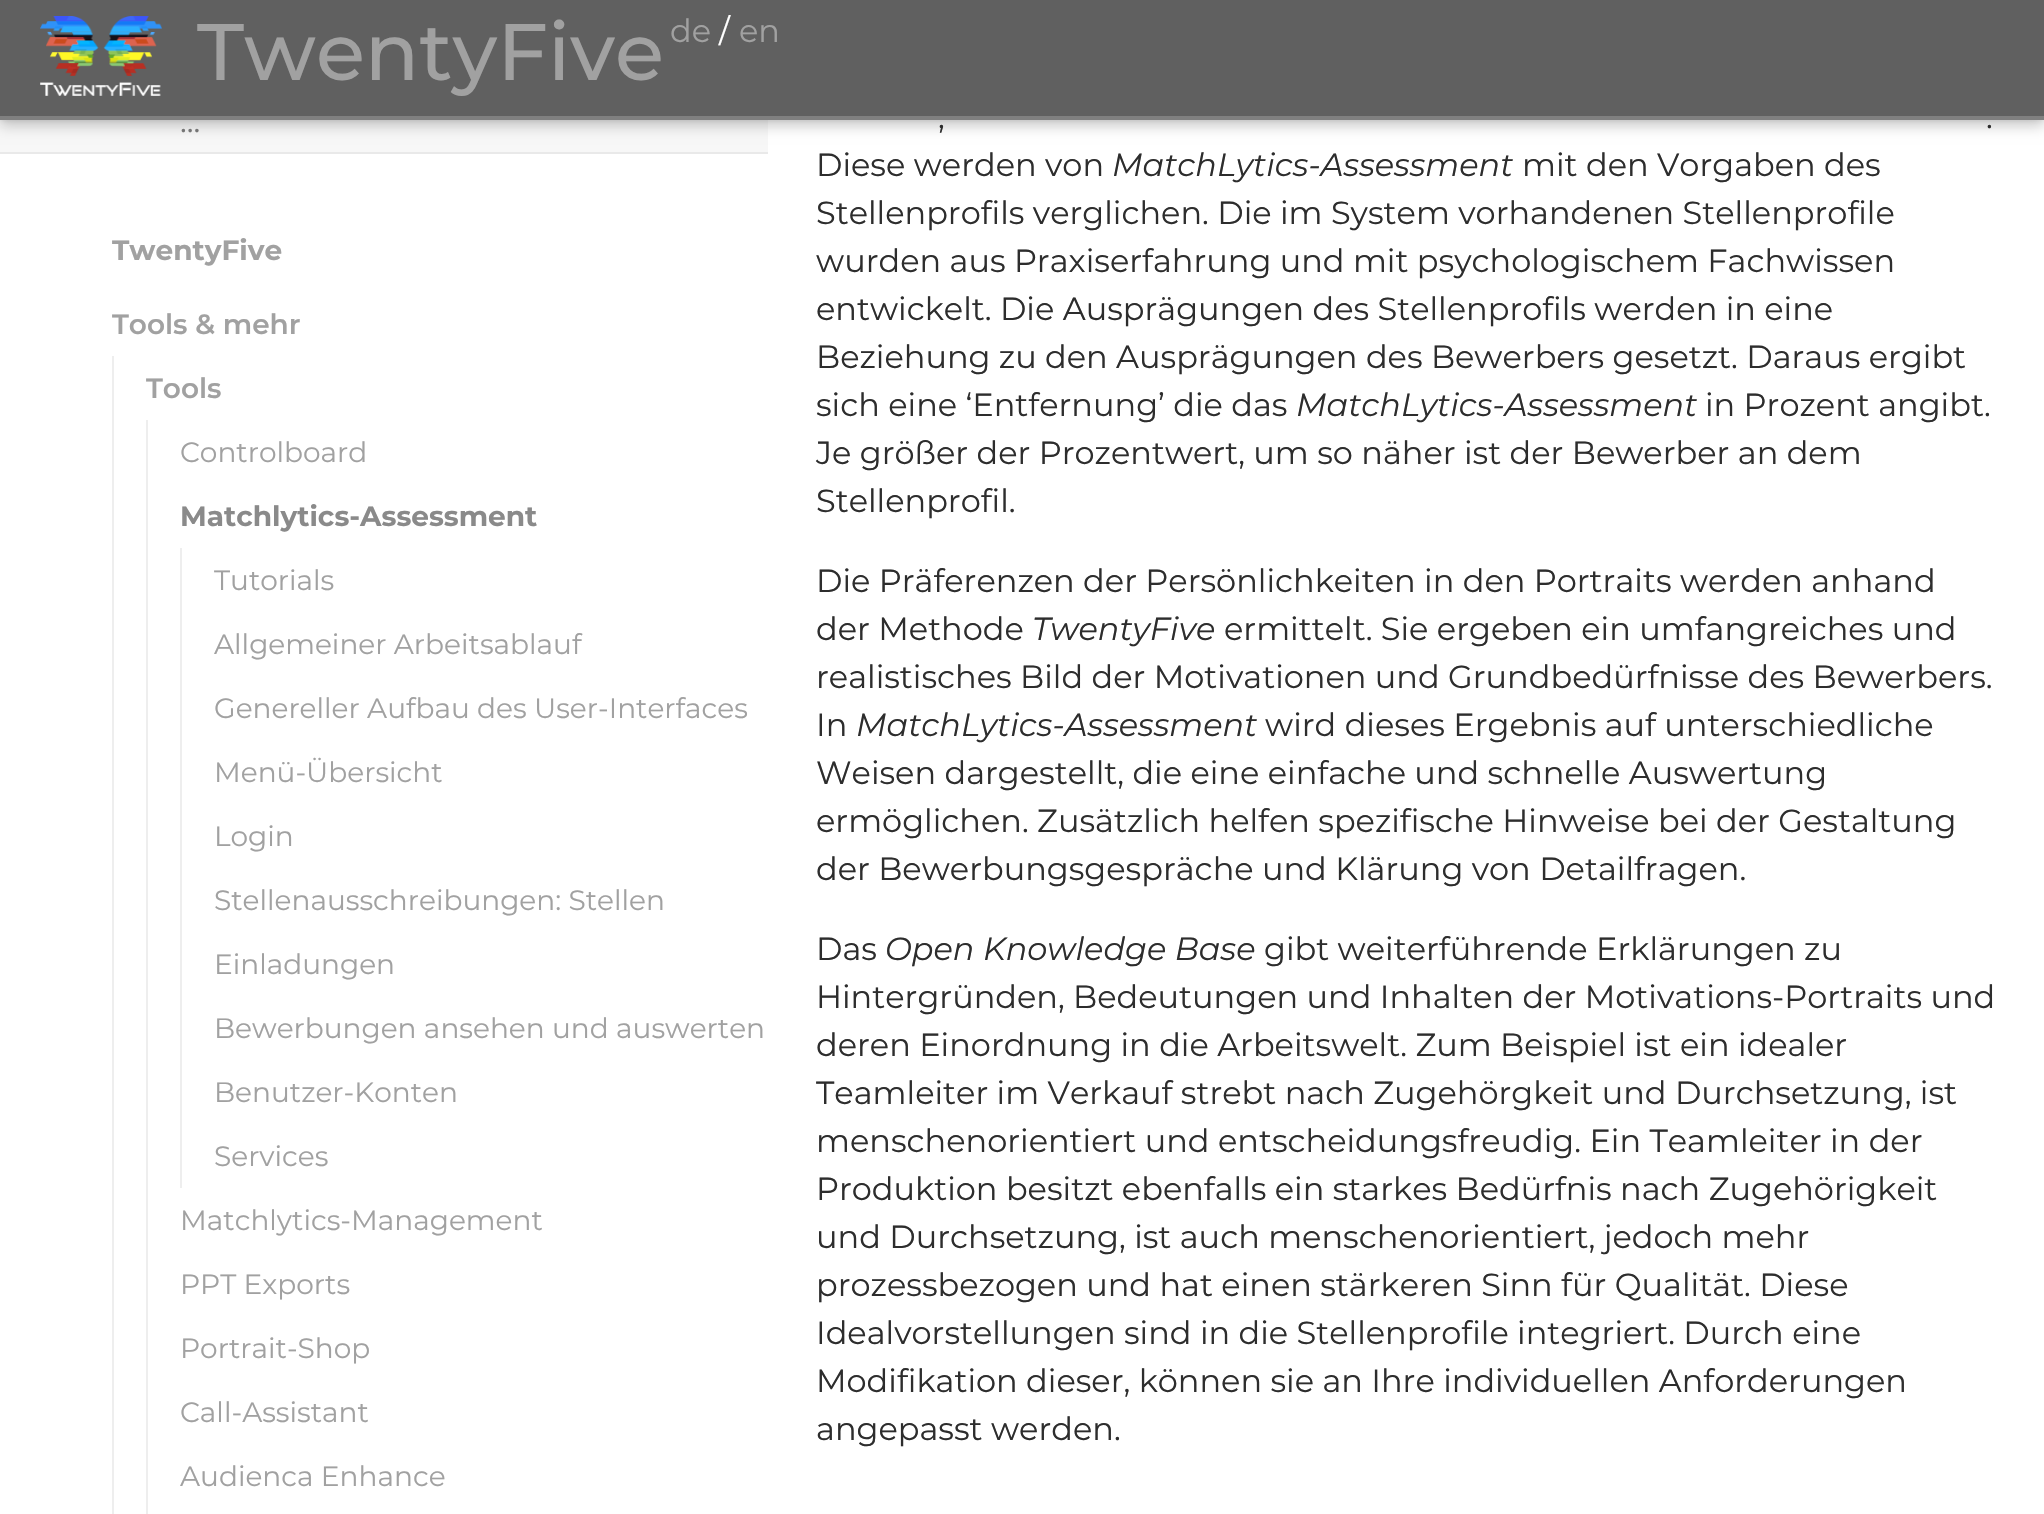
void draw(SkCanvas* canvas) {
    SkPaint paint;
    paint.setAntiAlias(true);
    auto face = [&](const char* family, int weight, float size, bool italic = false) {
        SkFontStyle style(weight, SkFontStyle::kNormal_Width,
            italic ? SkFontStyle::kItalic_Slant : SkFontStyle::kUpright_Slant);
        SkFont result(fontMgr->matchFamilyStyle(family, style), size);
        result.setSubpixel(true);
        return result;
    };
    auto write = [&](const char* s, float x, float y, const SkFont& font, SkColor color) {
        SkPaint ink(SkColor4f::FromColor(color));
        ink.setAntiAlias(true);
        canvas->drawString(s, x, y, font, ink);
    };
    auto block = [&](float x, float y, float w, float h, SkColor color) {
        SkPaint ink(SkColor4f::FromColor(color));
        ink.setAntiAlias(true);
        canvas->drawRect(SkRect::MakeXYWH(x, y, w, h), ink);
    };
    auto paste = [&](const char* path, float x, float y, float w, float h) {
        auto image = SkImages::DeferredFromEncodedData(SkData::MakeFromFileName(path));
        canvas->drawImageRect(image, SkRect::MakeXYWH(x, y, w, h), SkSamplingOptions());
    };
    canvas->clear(SK_ColorWHITE);
    block(0, 120, 768, 32, SkColorSetRGB(247, 247, 247));
    paint.setColor(SkColorSetARGB(51, 0, 0, 0));
    paint.setMaskFilter(SkMaskFilter::MakeBlur(kNormal_SkBlurStyle, 6.5f));
    canvas->drawRect(SkRect::MakeXYWH(0, 6, 2044, 120), paint);
    paint.setMaskFilter(nullptr);
    paint.setColor(SkColorSetARGB(26, 0, 0, 0));
    paint.setMaskFilter(SkMaskFilter::MakeBlur(kNormal_SkBlurStyle, 3));
    canvas->drawRect(SkRect::MakeXYWH(0, 0, 2044, 120), paint);
    paint.setMaskFilter(nullptr);
    block(0, 0, 2044, 116, SkColorSetRGB(96, 96, 96));
    block(0, 116, 2044, 4, SkColorSetRGB(128, 128, 128));
    paste("pic1.png", 40, 16, 122, 80);
    auto kFont1 = face("Montserrat", 500, 80);
    write("TwentyFive", 197, 80, kFont1, SkColorSetRGB(161, 161, 161));
    auto kFont2 = face("Montserrat", 400, 32);
    write("de", 670, 42, kFont2, SkColorSetRGB(161, 161, 161));
    write("/", 719, 42, kFont2, SK_ColorWHITE);
    write("en", 739, 42, kFont2, SkColorSetRGB(161, 161, 161));
    block(0, 152, 768, 2, SkColorSetRGB(233, 233, 233));
    write("...", 180, 132, kFont2, SkColorSetRGB(117, 117, 117));
    auto kFont3 = face("Montserrat", 700, 28);
    write("TwentyFive", 112, 260, kFont3, SkColorSetRGB(161, 161, 161));
    auto kFont4 = face("Montserrat", 600, 28);
    write("Tools & mehr", 112, 334, kFont4, SkColorSetRGB(161, 161, 161));
    block(112, 356, 2, 1158, SkColorSetRGB(238, 238, 238));
    write("Tools", 146, 398, kFont4, SkColorSetRGB(161, 161, 161));
    block(146, 420, 2, 1094, SkColorSetRGB(238, 238, 238));
    auto kFont5 = face("Montserrat", 400, 28);
    write("Controlboard", 180, 462, kFont5, SkColorSetRGB(161, 161, 161));
    write("Matchlytics-Assessment", 180, 526, kFont3, SkColorSetRGB(138, 138, 138));
    block(180, 548, 2, 640, SkColorSetRGB(238, 238, 238));
    write("Tutorials", 214, 590, kFont5, SkColorSetRGB(161, 161, 161));
    write("Allgemeiner Arbeitsablauf", 214, 654, kFont5, SkColorSetRGB(161, 161, 161));
    write("Genereller Aufbau des User-Interfaces", 214, 718, kFont5, SkColorSetRGB(161, 161, 161));
    write("Menü-Übersicht", 214, 782, kFont5, SkColorSetRGB(161, 161, 161));
    write("Login", 214, 846, kFont5, SkColorSetRGB(161, 161, 161));
    write("Stellenausschreibungen: Stellen", 214, 910, kFont5, SkColorSetRGB(161, 161, 161));
    write("Einladungen", 214, 974, kFont5, SkColorSetRGB(161, 161, 161));
    write("Bewerbungen ansehen und auswerten", 214, 1038, kFont5, SkColorSetRGB(161, 161, 161));
    write("Benutzer-Konten", 214, 1102, kFont5, SkColorSetRGB(161, 161, 161));
    write("Services", 214, 1166, kFont5, SkColorSetRGB(161, 161, 161));
    write("Matchlytics-Management", 180, 1230, kFont5, SkColorSetRGB(161, 161, 161));
    write("PPT Exports", 180, 1294, kFont5, SkColorSetRGB(161, 161, 161));
    write("Portrait-Shop", 180, 1358, kFont5, SkColorSetRGB(161, 161, 161));
    write("Call-Assistant", 180, 1422, kFont5, SkColorSetRGB(161, 161, 161));
    write("Audienca Enhance", 180, 1486, kFont5, SkColorSetRGB(161, 161, 161));
    write(",", 938, 128, kFont2, SkColorSetRGB(45, 45, 45));
    write(".", 1986, 128, kFont2, SkColorSetRGB(45, 45, 45));
    write("Diese werden von", 816, 176, kFont2, SkColorSetRGB(45, 45, 45));
    auto kFont6 = face("Montserrat", 400, 32, true);
    write("MatchLytics-Assessment", 1112, 176, kFont6, SkColorSetRGB(45, 45, 45));
    write("mit den Vorgaben des", 1522, 176, kFont2, SkColorSetRGB(45, 45, 45));
    write("Stellenprofils verglichen. Die im System vorhandenen Stellenprofile", 816, 224, kFont2, SkColorSetRGB(45, 45, 45));
    write("wurden aus Praxiserfahrung und mit psychologischem Fachwissen", 816, 272, kFont2, SkColorSetRGB(45, 45, 45));
    write("entwickelt. Die Ausprägungen des Stellenprofils werden in eine", 816, 320, kFont2, SkColorSetRGB(45, 45, 45));
    write("Beziehung zu den Ausprägungen des Bewerbers gesetzt. Daraus ergibt", 816, 368, kFont2, SkColorSetRGB(45, 45, 45));
    write("sich eine ‘Entfernung’ die das", 816, 416, kFont2, SkColorSetRGB(45, 45, 45));
    write("MatchLytics-Assessment", 1296, 416, kFont6, SkColorSetRGB(45, 45, 45));
    write("in Prozent angibt.", 1705, 416, kFont2, SkColorSetRGB(45, 45, 45));
    write("Je größer der Prozentwert, um so näher ist der Bewerber an dem", 816, 464, kFont2, SkColorSetRGB(45, 45, 45));
    write("Stellenprofil.", 816, 512, kFont2, SkColorSetRGB(45, 45, 45));
    write("Die Präferenzen der Persönlichkeiten in den Portraits werden anhand", 816, 592, kFont2, SkColorSetRGB(45, 45, 45));
    write("der Methode", 816, 640, kFont2, SkColorSetRGB(45, 45, 45));
    write("TwentyFive", 1032, 640, kFont6, SkColorSetRGB(45, 45, 45));
    write("ermittelt. Sie ergeben ein umfangreiches und", 1224, 640, kFont2, SkColorSetRGB(45, 45, 45));
    write("realistisches Bild der Motivationen und Grundbedürfnisse des Bewerbers.", 816, 688, kFont2, SkColorSetRGB(45, 45, 45));
    write("In", 816, 736, kFont2, SkColorSetRGB(45, 45, 45));
    write("MatchLytics-Assessment", 856, 736, kFont6, SkColorSetRGB(45, 45, 45));
    write("wird dieses Ergebnis auf unterschiedliche", 1265, 736, kFont2, SkColorSetRGB(45, 45, 45));
    write("Weisen dargestellt, die eine einfache und schnelle Auswertung", 816, 784, kFont2, SkColorSetRGB(45, 45, 45));
    write("ermöglichen. Zusätzlich helfen spezifische Hinweise bei der Gestaltung", 816, 832, kFont2, SkColorSetRGB(45, 45, 45));
    write("der Bewerbungsgespräche und Klärung von Detailfragen.", 816, 880, kFont2, SkColorSetRGB(45, 45, 45));
    write("Das", 816, 960, kFont2, SkColorSetRGB(45, 45, 45));
    write("Open Knowledge Base", 885, 960, kFont6, SkColorSetRGB(45, 45, 45));
    write("gibt weiterführende Erklärungen zu", 1264, 960, kFont2, SkColorSetRGB(45, 45, 45));
    write("Hintergründen, Bedeutungen und Inhalten der Motivations-Portraits und", 816, 1008, kFont2, SkColorSetRGB(45, 45, 45));
    write("deren Einordnung in die Arbeitswelt. Zum Beispiel ist ein idealer", 816, 1056, kFont2, SkColorSetRGB(45, 45, 45));
    write("Teamleiter im Verkauf strebt nach Zugehörgkeit und Durchsetzung, ist", 816, 1104, kFont2, SkColorSetRGB(45, 45, 45));
    write("menschenorientiert und entscheidungsfreudig. Ein Teamleiter in der", 816, 1152, kFont2, SkColorSetRGB(45, 45, 45));
    write("Produktion besitzt ebenfalls ein starkes Bedürfnis nach Zugehörigkeit", 816, 1200, kFont2, SkColorSetRGB(45, 45, 45));
    write("und Durchsetzung, ist auch menschenorientiert, jedoch mehr", 816, 1248, kFont2, SkColorSetRGB(45, 45, 45));
    write("prozessbezogen und hat einen stärkeren Sinn für Qualität. Diese", 816, 1296, kFont2, SkColorSetRGB(45, 45, 45));
    write("Idealvorstellungen sind in die Stellenprofile integriert. Durch eine", 816, 1344, kFont2, SkColorSetRGB(45, 45, 45));
    write("Modifikation dieser, können sie an Ihre individuellen Anforderungen", 816, 1392, kFont2, SkColorSetRGB(45, 45, 45));
    write("angepasst werden.", 816, 1440, kFont2, SkColorSetRGB(45, 45, 45));
}
